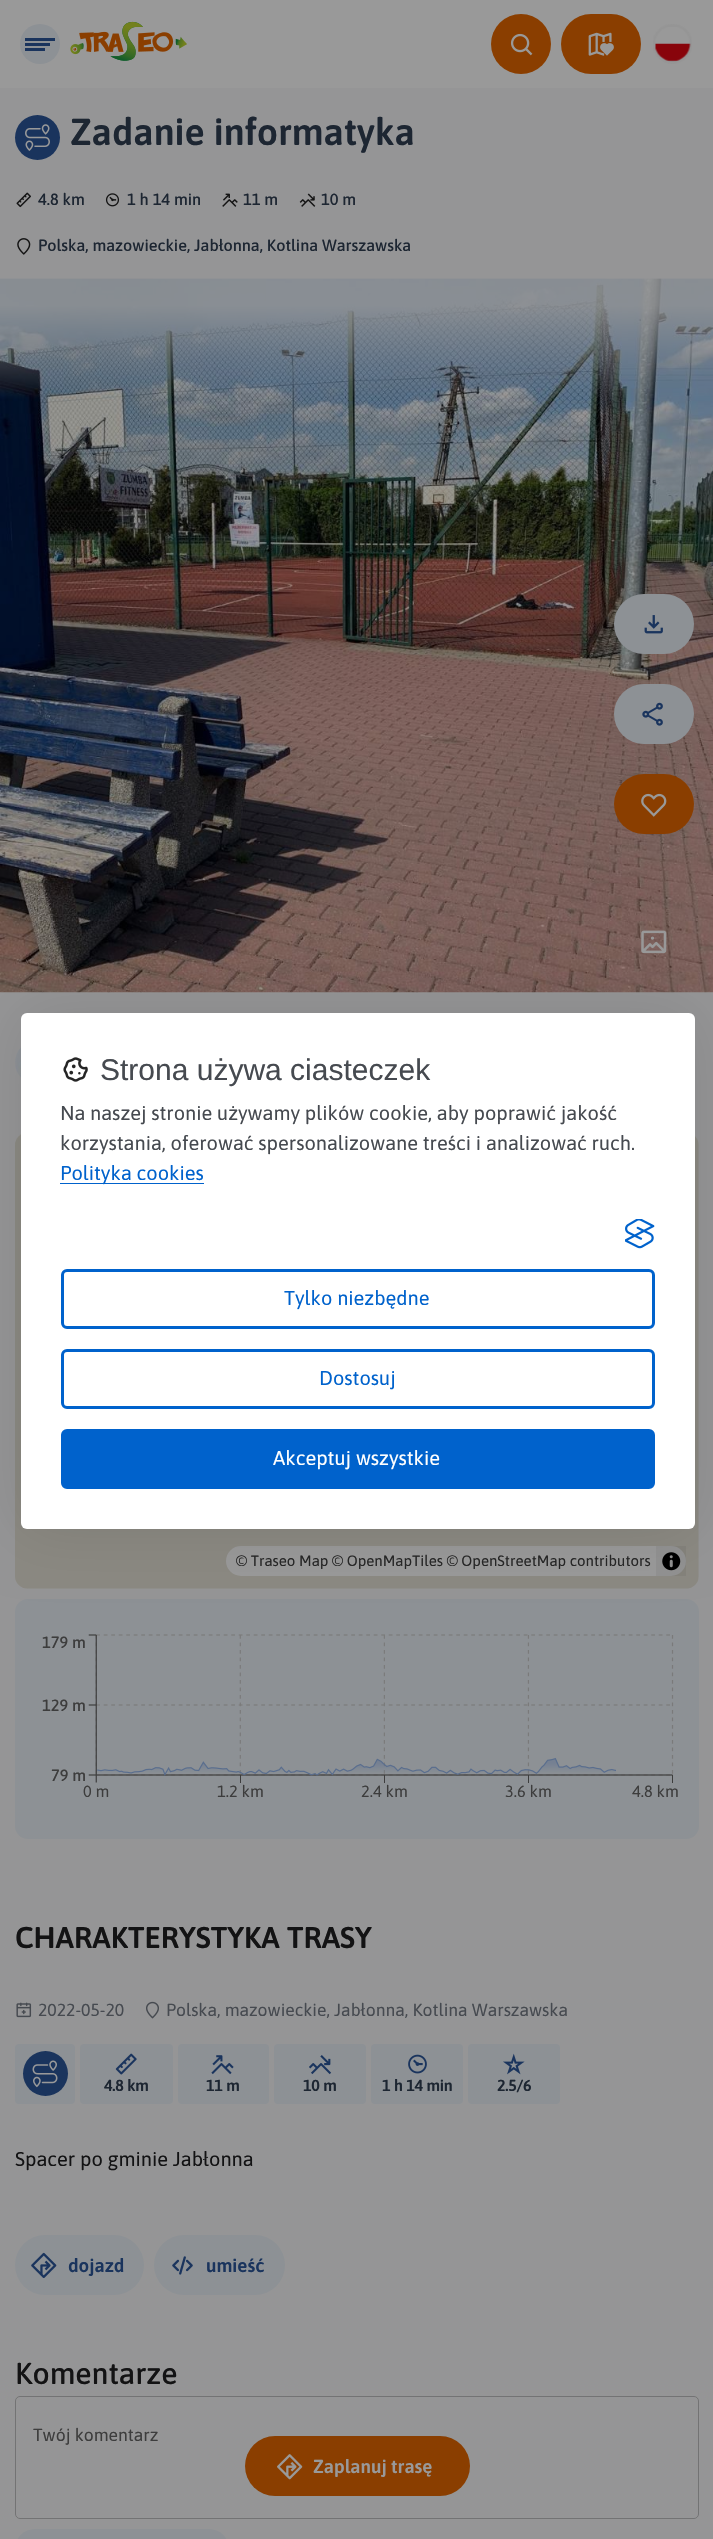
void draw(SkCanvas* canvas) {
    SkPaint paint;
    paint.setAntiAlias(true);
    auto face = [&](const char* family, int weight, float size, bool italic = false) {
        SkFontStyle style(weight, SkFontStyle::kNormal_Width,
            italic ? SkFontStyle::kItalic_Slant : SkFontStyle::kUpright_Slant);
        SkFont result(fontMgr->matchFamilyStyle(family, style), size);
        result.setSubpixel(true);
        return result;
    };
    auto write = [&](const char* s, float x, float y, const SkFont& font, SkColor color) {
        SkPaint ink(SkColor4f::FromColor(color));
        ink.setAntiAlias(true);
        canvas->drawString(s, x, y, font, ink);
    };
    auto writeSpaced = [&](const char* s, float x, float y, const SkFont& font, const SkPaint& ink, float letter, float word) {
        std::vector<SkGlyphID> glyphs(font.countText(s, strlen(s), SkTextEncoding::kUTF8));
        std::vector<float> xs(glyphs.size());
        font.textToGlyphs(s, strlen(s), SkTextEncoding::kUTF8, glyphs);
        font.getXPos(glyphs, xs, x);
        float extra = 0;
        for (size_t i = 0; i < glyphs.size(); i++) {
            xs[i] += extra;
            extra += letter + word * (glyphs[i] == font.unicharToGlyph(' '));
        }
        canvas->drawTextBlob(SkTextBlob::MakeFromPosHGlyphs(glyphs, xs, y, font), 0, 0, ink);
    };
    auto block = [&](float x, float y, float w, float h, SkColor color) {
        SkPaint ink(SkColor4f::FromColor(color));
        ink.setAntiAlias(true);
        canvas->drawRect(SkRect::MakeXYWH(x, y, w, h), ink);
    };
    auto card = [&](float x, float y, float w, float h, float radius, SkColor color) {
        SkPaint ink(SkColor4f::FromColor(color));
        ink.setAntiAlias(true);
        canvas->drawRoundRect(SkRect::MakeXYWH(x, y, w, h), radius, radius, ink);
    };
    auto paste = [&](const char* path, float x, float y, float w, float h) {
        auto image = SkImages::DeferredFromEncodedData(SkData::MakeFromFileName(path));
        canvas->drawImageRect(image, SkRect::MakeXYWH(x, y, w, h), SkSamplingOptions());
    };
    canvas->clear(SkColorSetRGB(149, 149, 150));
    block(0, 0, 713, 88, SkColorSetRGB(153, 153, 153));
    paint.setColor(SkColorSetRGB(141, 145, 149));
    canvas->drawCircle(40, 44, 20, paint);
    block(25, 38, 30, 3, SkColorSetRGB(26, 52, 93));
    block(25, 43, 25, 3, SkColorSetRGB(26, 52, 93));
    block(25, 48, 20, 3, SkColorSetRGB(26, 52, 93));
    paste("pic1.png", 70, 21, 117, 40);
    paint.setColor(SkColorSetRGB(138, 62, 0));
    canvas->drawCircle(521, 44, 30, paint);
    paste("pic2.png", 510, 33, 23, 23);
    card(561, 14, 80, 60, 30, SkColorSetRGB(138, 62, 0));
    paste("pic3.png", 588, 32, 26, 24);
    paste("pic4.png", 653, 24, 39, 40);
    paint.setColor(SkColorSetRGB(26, 52, 93));
    canvas->drawCircle(37.5f, 137.5f, 22.5f, paint);
    paste("pic5.png", 25, 124, 25, 27);
    auto kFont1 = face("Asap", 600, 37.5f);
    write("Zadanie informatyka", 70, 145, kFont1, SkColorSetRGB(29, 38, 50));
    paste("pic6.png", 16, 192, 15, 16);
    auto kFont2 = face("Asap", 500, 16.25f);
    write("4.8 km", 38, 205, kFont2, SkColorSetRGB(29, 38, 50));
    paste("pic7.png", 105, 193, 15, 14);
    write("1 h 14 min", 127, 205, kFont2, SkColorSetRGB(29, 38, 50));
    paste("pic8.png", 222, 193, 16, 14);
    write("11 m", 243, 205, kFont2, SkColorSetRGB(29, 38, 50));
    paste("pic9.png", 299, 193, 17, 14);
    write("10 m", 321, 205, kFont2, SkColorSetRGB(29, 38, 50));
    paste("pic10.png", 17, 238, 14, 17);
    write("Polska, mazowieckie, Jabłonna, Kotlina Warszawska", 38, 251, kFont2, SkColorSetRGB(29, 38, 50));
    paste("pic14.png", 0, 278, 713, 715);
    card(614, 594, 80, 60, 30, SkColorSetRGB(141, 145, 149));
    paste("pic11.png", 644, 615, 19, 19);
    card(614, 684, 80, 60, 30, SkColorSetRGB(141, 145, 149));
    paste("pic12.png", 642, 702, 21, 24);
    card(614, 774, 80, 60, 30, SkColorSetRGB(138, 62, 0));
    paste("pic13.png", 641, 793, 26, 24);
    paste("pic15.png", 641, 930, 26, 24);
    paste("pic18.png", 15, 1047, 6, 31);
    paste("pic19.png", 15, 1134, 684, 455);
    card(226, 1546, 460, 30, 15, SkColorSetRGB(153, 153, 153));
    block(656, 1546, 30, 30, SkColorSetARGB(13, 0, 0, 0));
    paste("pic20.png", 662, 1552, 19, 19);
    card(15, 1599, 684, 240, 13, SkColorSetRGB(141, 145, 149));
    paint.setColor(SkColorSetARGB(26, 0, 0, 0));
    paint.setMaskFilter(SkMaskFilter::MakeBlur(kNormal_SkBlurStyle, 31));
    canvas->drawRoundRect(SkRect::MakeXYWH(21, 1013, 674, 516), 6, 6, paint);
    paint.setMaskFilter(nullptr);
    card(21, 1013, 674, 516, 6, SK_ColorWHITE);
    paste("pic16.png", 63, 1057, 25, 25);
    auto kFont3 = face("Liberation Sans", 400, 30);
    write("Strona używa ciasteczek", 100, 1080, kFont3, SkColorSetRGB(70, 74, 80));
    auto kFont4 = face("Asap", 400, 20);
    write("Na naszej stronie używamy plików cookie, aby poprawić jakość", 60, 1120, kFont4, SkColorSetRGB(70, 74, 80));
    write("korzystania, oferować spersonalizowane treści i analizować ruch.", 60, 1150, kFont4, SkColorSetRGB(70, 74, 80));
    block(60, 1183, 144, 1, SkColorSetRGB(0, 98, 204));
    write("Polityka cookies", 60, 1180, kFont4, SkColorSetRGB(0, 98, 204));
    paste("pic17.png", 625, 1219, 30, 30);
    paint.setStyle(SkPaint::kStroke_Style);
    paint.setStrokeWidth(3);
    paint.setColor(SkColorSetRGB(0, 98, 204));
    canvas->drawRoundRect(SkRect::MakeXYWH(62.5f, 1270.5f, 591, 57), 4.5f, 4.5f, paint);
    write("Tylko niezbędne", 284, 1305, kFont4, SkColorSetRGB(0, 98, 204));
    canvas->drawRoundRect(SkRect::MakeXYWH(62.5f, 1350.5f, 591, 57), 4.5f, 4.5f, paint);
    write("Dostosuj", 319, 1385, kFont4, SkColorSetRGB(0, 98, 204));
    paint.setStyle(SkPaint::kFill_Style);
    canvas->drawRoundRect(SkRect::MakeXYWH(62.5f, 1430.5f, 591, 57), 4.5f, 4.5f, paint);
    paint.setStyle(SkPaint::kStroke_Style);
    canvas->drawRoundRect(SkRect::MakeXYWH(62.5f, 1430.5f, 591, 57), 4.5f, 4.5f, paint);
    write("Akceptuj wszystkie", 273, 1465, kFont4, SK_ColorWHITE);
    auto kFont5 = face("Asap", 400, 15);
    write("© Traseo Map © OpenMapTiles © OpenStreetMap contributors", 236, 1566, kFont5, SkColorSetRGB(38, 38, 38));
    write("179 m", 42, 1648, kFont2, SkColorSetRGB(61, 61, 61));
    paste("pic21.png", 88, 1634, 586, 149);
    write("129 m", 42, 1711, kFont2, SkColorSetRGB(61, 61, 61));
    write("79 m", 51, 1781, kFont2, SkColorSetRGB(61, 61, 61));
    auto kFont6 = face("Asap", 400, 16.25f);
    write("0 m", 83, 1797, kFont6, SkColorSetRGB(61, 61, 61));
    write("1.2 km", 217, 1797, kFont6, SkColorSetRGB(61, 61, 61));
    write("2.4 km", 361, 1797, kFont6, SkColorSetRGB(61, 61, 61));
    write("3.6 km", 505, 1797, kFont6, SkColorSetRGB(61, 61, 61));
    write("4.8 km", 632, 1797, kFont6, SkColorSetRGB(61, 61, 61));
    auto kFont7 = face("Asap", 600, 30);
    write("CHARAKTERYSTYKA TRASY", 15, 1948, kFont7, SkColorSetRGB(19, 19, 20));
    paste("pic22.png", 16, 2002, 16, 16);
    auto kFont8 = face("Asap", 400, 17.5f);
    write("2022-05-20", 38, 2016, kFont8, SkColorSetRGB(70, 74, 80));
    paste("pic23.png", 146, 2001, 13, 18);
    write("Polska, mazowieckie, Jabłonna, Kotlina Warszawska", 166, 2016, kFont8, SkColorSetRGB(70, 74, 80));
    card(15, 2044, 60, 60, 4, SkColorSetRGB(141, 145, 149));
    paint.setStyle(SkPaint::kFill_Style);
    paint.setColor(SkColorSetRGB(26, 52, 93));
    canvas->drawCircle(45.5f, 2073.5f, 22.5f, paint);
    paste("pic24.png", 32, 2060, 26, 28);
    card(80, 2044, 93, 60, 4, SkColorSetRGB(141, 145, 149));
    paste("pic25.png", 115, 2053, 22, 22);
    auto kFont9 = face("Asap", 600, 16);
    paint.setColor(SkColorSetRGB(29, 38, 50));
    writeSpaced("4.8 km", 104, 2091, kFont9, paint, -0.25f, 0);
    card(178, 2044, 91, 60, 4, SkColorSetRGB(141, 145, 149));
    paste("pic26.png", 211, 2055, 23, 20);
    writeSpaced("11 m", 206, 2091, kFont9, paint, -0.25f, 0);
    card(274, 2044, 92, 60, 4, SkColorSetRGB(141, 145, 149));
    paste("pic27.png", 309, 2055, 23, 20);
    writeSpaced("10 m", 303, 2091, kFont9, paint, -0.25f, 0);
    card(371, 2044, 92, 60, 4, SkColorSetRGB(141, 145, 149));
    paste("pic28.png", 408, 2054, 19, 20);
    writeSpaced("1 h 14 min", 382, 2091, kFont9, paint, -0.25f, 0);
    card(468, 2044, 92, 60, 4, SkColorSetRGB(141, 145, 149));
    paste("pic29.png", 503, 2053, 22, 22);
    writeSpaced("2.5/6", 497, 2091, kFont9, paint, -0.25f, 0);
    write("Spacer po gminie Jabłonna", 15, 2166, kFont4, SkColorSetRGB(19, 19, 20));
    card(15, 2235, 129, 60, 30, SkColorSetRGB(141, 145, 149));
    paste("pic30.png", 31, 2252, 26, 26);
    auto kFont10 = face("Asap", 600, 18.75f);
    write("dojazd", 68, 2272, kFont10, SkColorSetRGB(26, 52, 93));
    card(154, 2235, 131, 60, 30, SkColorSetRGB(141, 145, 149));
    paste("pic31.png", 172, 2256, 21, 19);
    write("umieść", 206, 2272, kFont10, SkColorSetRGB(26, 52, 93));
    auto kFont11 = face("Asap", 500, 30.25f);
    write("Komentarze", 15, 2384, kFont11, SkColorSetRGB(19, 19, 20));
    paint.setStyle(SkPaint::kStroke_Style);
    paint.setStrokeWidth(1);
    paint.setColor(SkColorSetRGB(115, 115, 116));
    canvas->drawRoundRect(SkRect::MakeXYWH(15.5f, 2396.5f, 683, 122), 4.5f, 4.5f, paint);
    write("Twój komentarz", 33, 2441, kFont8, SkColorSetRGB(61, 61, 61));
    card(15, 2529, 214, 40, 30, SkColorSetRGB(141, 145, 149));
    card(245, 2436, 225, 60, 30, SkColorSetRGB(138, 62, 0));
    paste("pic32.png", 277, 2454, 26, 26);
    write("Zaplanuj trasę", 313, 2473, kFont10, SkColorSetRGB(153, 153, 153));
}
